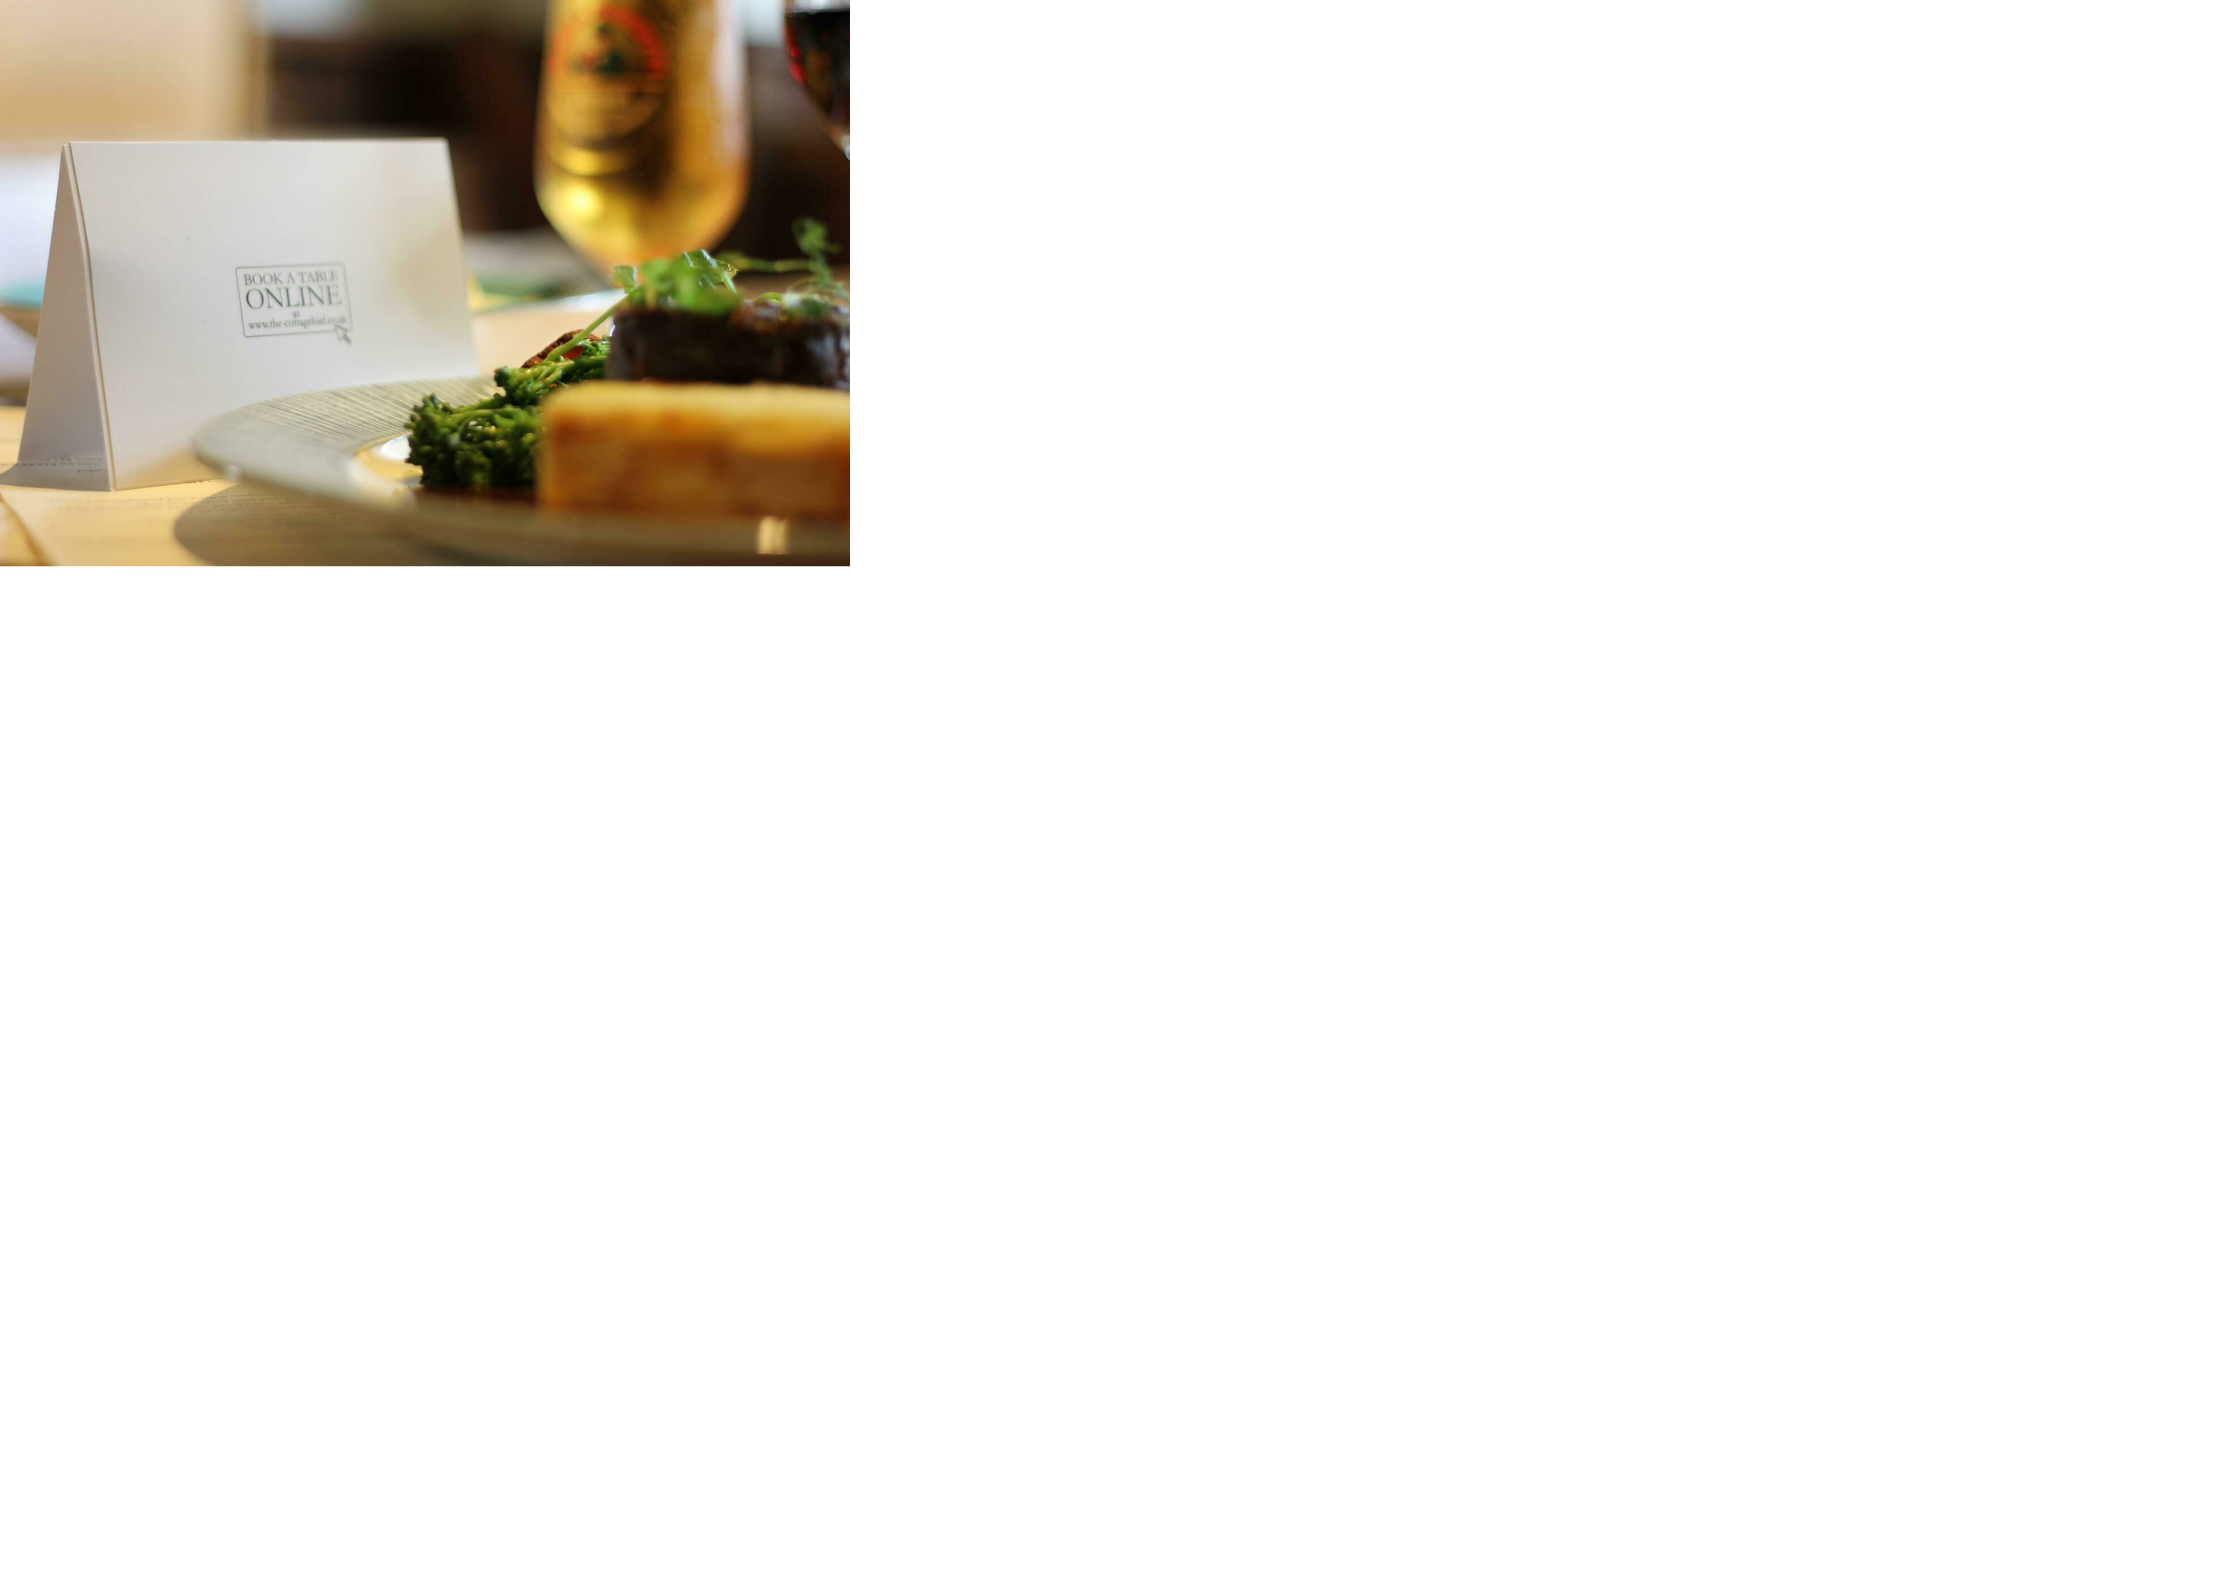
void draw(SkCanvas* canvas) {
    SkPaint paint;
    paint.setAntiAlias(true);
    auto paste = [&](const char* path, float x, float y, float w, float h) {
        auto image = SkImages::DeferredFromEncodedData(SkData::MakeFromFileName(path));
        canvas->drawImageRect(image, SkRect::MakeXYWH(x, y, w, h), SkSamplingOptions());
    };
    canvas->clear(SK_ColorWHITE);
    paste("pic1.png", 0, 0, 850, 567);
}
